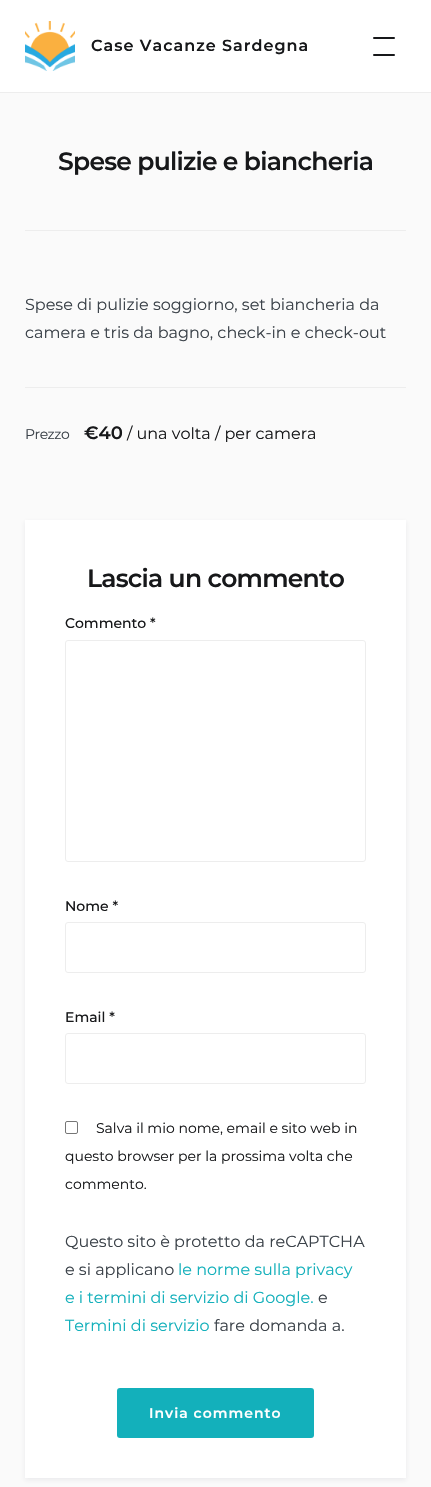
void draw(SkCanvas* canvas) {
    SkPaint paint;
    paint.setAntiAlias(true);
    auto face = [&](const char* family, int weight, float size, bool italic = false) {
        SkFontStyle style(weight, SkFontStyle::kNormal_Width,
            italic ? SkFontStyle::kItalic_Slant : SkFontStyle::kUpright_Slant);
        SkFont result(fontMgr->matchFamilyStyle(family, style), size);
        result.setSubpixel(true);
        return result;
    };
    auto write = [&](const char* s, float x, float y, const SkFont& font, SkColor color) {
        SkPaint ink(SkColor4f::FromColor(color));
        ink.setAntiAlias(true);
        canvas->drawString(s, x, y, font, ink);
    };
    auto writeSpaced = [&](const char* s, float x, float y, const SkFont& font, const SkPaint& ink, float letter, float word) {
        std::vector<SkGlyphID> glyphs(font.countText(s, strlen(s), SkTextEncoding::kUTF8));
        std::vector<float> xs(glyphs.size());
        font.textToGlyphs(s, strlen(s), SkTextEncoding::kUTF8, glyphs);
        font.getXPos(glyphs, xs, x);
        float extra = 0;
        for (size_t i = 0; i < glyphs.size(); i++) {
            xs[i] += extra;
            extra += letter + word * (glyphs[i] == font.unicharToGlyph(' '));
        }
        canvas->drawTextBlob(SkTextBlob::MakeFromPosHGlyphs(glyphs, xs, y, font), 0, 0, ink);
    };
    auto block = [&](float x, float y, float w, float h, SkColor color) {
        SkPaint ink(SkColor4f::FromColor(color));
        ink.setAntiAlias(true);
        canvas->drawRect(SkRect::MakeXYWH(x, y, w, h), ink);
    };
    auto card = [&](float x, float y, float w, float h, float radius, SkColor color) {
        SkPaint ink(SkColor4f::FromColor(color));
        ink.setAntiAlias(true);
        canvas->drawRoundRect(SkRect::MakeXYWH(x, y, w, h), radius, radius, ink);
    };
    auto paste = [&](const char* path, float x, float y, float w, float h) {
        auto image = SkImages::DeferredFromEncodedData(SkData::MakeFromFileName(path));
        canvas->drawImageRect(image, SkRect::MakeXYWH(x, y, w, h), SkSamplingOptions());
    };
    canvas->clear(SkColorSetRGB(250, 250, 250));
    block(0, 92, 431, 1, SkColorSetRGB(237, 237, 237));
    block(0, 0, 431, 92, SK_ColorWHITE);
    paste("pic1.png", 25, 21, 50, 50);
    auto kFont1 = face("Montserrat", 600, 16);
    paint.setColor(SkColorSetRGB(23, 24, 26));
    writeSpaced("Case Vacanze Sardegna", 91, 51, kFont1, paint, 1, 0);
    card(373, 37, 22, 2, 1, SkColorSetRGB(23, 24, 26));
    card(373, 54, 22, 2, 1, SkColorSetRGB(23, 24, 26));
    block(25, 230, 381, 1, SkColorSetRGB(237, 237, 237));
    auto kFont2 = face("Montserrat", 600, 25);
    writeSpaced("Spese pulizie e biancheria", 58, 170, kFont2, paint, -0.75f, 0);
    auto kFont3 = face("Montserrat", 400, 16);
    write("Spese di pulizie soggiorno, set biancheria da", 25, 310, kFont3, SkColorSetRGB(59, 66, 73));
    write("camera e tris da bagno, check-in e check-out", 25, 338, kFont3, SkColorSetRGB(59, 66, 73));
    block(25, 387, 381, 1, SkColorSetRGB(237, 237, 237));
    auto kFont4 = face("Montserrat", 400, 14);
    paint.setColor(SkColorSetRGB(59, 66, 73));
    writeSpaced("Prezzo", 25, 439, kFont4, paint, -0.5f, 0);
    auto kFont5 = face("Montserrat", 600, 18);
    write("€40", 84, 439, kFont5, SkColorSetRGB(23, 24, 26));
    write("/ una volta / per camera", 127, 439, kFont3, SkColorSetRGB(23, 24, 26));
    paint.setColor(SkColorSetARGB(20, 50, 54, 72));
    paint.setMaskFilter(SkMaskFilter::MakeBlur(kNormal_SkBlurStyle, 2.5f));
    canvas->drawRect(SkRect::MakeXYWH(25, 522, 381, 958), paint);
    paint.setMaskFilter(nullptr);
    block(25, 520, 381, 958, SK_ColorWHITE);
    paint.setColor(SkColorSetRGB(23, 24, 26));
    writeSpaced("Lascia un commento", 87, 587, kFont2, paint, -0.75f, 0);
    auto kFont6 = face("Montserrat", 500, 14);
    write("Commento *", 65, 628, kFont6, SkColorSetRGB(23, 24, 26));
    paint.setStyle(SkPaint::kStroke_Style);
    paint.setStrokeWidth(1);
    paint.setColor(SkColorSetRGB(237, 237, 237));
    canvas->drawRoundRect(SkRect::MakeXYWH(65.5f, 640.5f, 300, 221), 2.5f, 2.5f, paint);
    write("Nome *", 65, 911, kFont6, SkColorSetRGB(23, 24, 26));
    canvas->drawRoundRect(SkRect::MakeXYWH(65.5f, 922.5f, 300, 50), 2.5f, 2.5f, paint);
    write("Email *", 65, 1022, kFont6, SkColorSetRGB(23, 24, 26));
    canvas->drawRoundRect(SkRect::MakeXYWH(65.5f, 1033.5f, 300, 50), 2.5f, 2.5f, paint);
    paint.setColor(SkColorSetRGB(118, 118, 118));
    canvas->drawRoundRect(SkRect::MakeXYWH(65.5f, 1121.5f, 12, 12), 1.5f, 1.5f, paint);
    write("Salva il mio nome, email e sito web in", 96, 1133, kFont4, SkColorSetRGB(23, 24, 26));
    write("questo browser per la prossima volta che", 65, 1161, kFont4, SkColorSetRGB(23, 24, 26));
    write("commento.", 65, 1189, kFont4, SkColorSetRGB(23, 24, 26));
    write("Questo sito è protetto da reCAPTCHA", 65, 1247, kFont3, SkColorSetRGB(59, 66, 73));
    write("e si applicano", 65, 1275, kFont3, SkColorSetRGB(59, 66, 73));
    write("le norme sulla privacy", 178, 1275, kFont3, SkColorSetRGB(19, 176, 187));
    write("e i termini di servizio di Google.", 65, 1303, kFont3, SkColorSetRGB(19, 176, 187));
    write("e", 318, 1303, kFont3, SkColorSetRGB(59, 66, 73));
    write("Termini di servizio", 65, 1331, kFont3, SkColorSetRGB(19, 176, 187));
    write("fare domanda a.", 214, 1331, kFont3, SkColorSetRGB(59, 66, 73));
    card(117, 1388, 197, 50, 3, SkColorSetRGB(19, 176, 187));
    auto kFont7 = face("Montserrat", 600, 14);
    paint.setStyle(SkPaint::kFill_Style);
    paint.setColor(SK_ColorWHITE);
    writeSpaced("Invia commento", 149, 1418, kFont7, paint, 1, 0);
}
